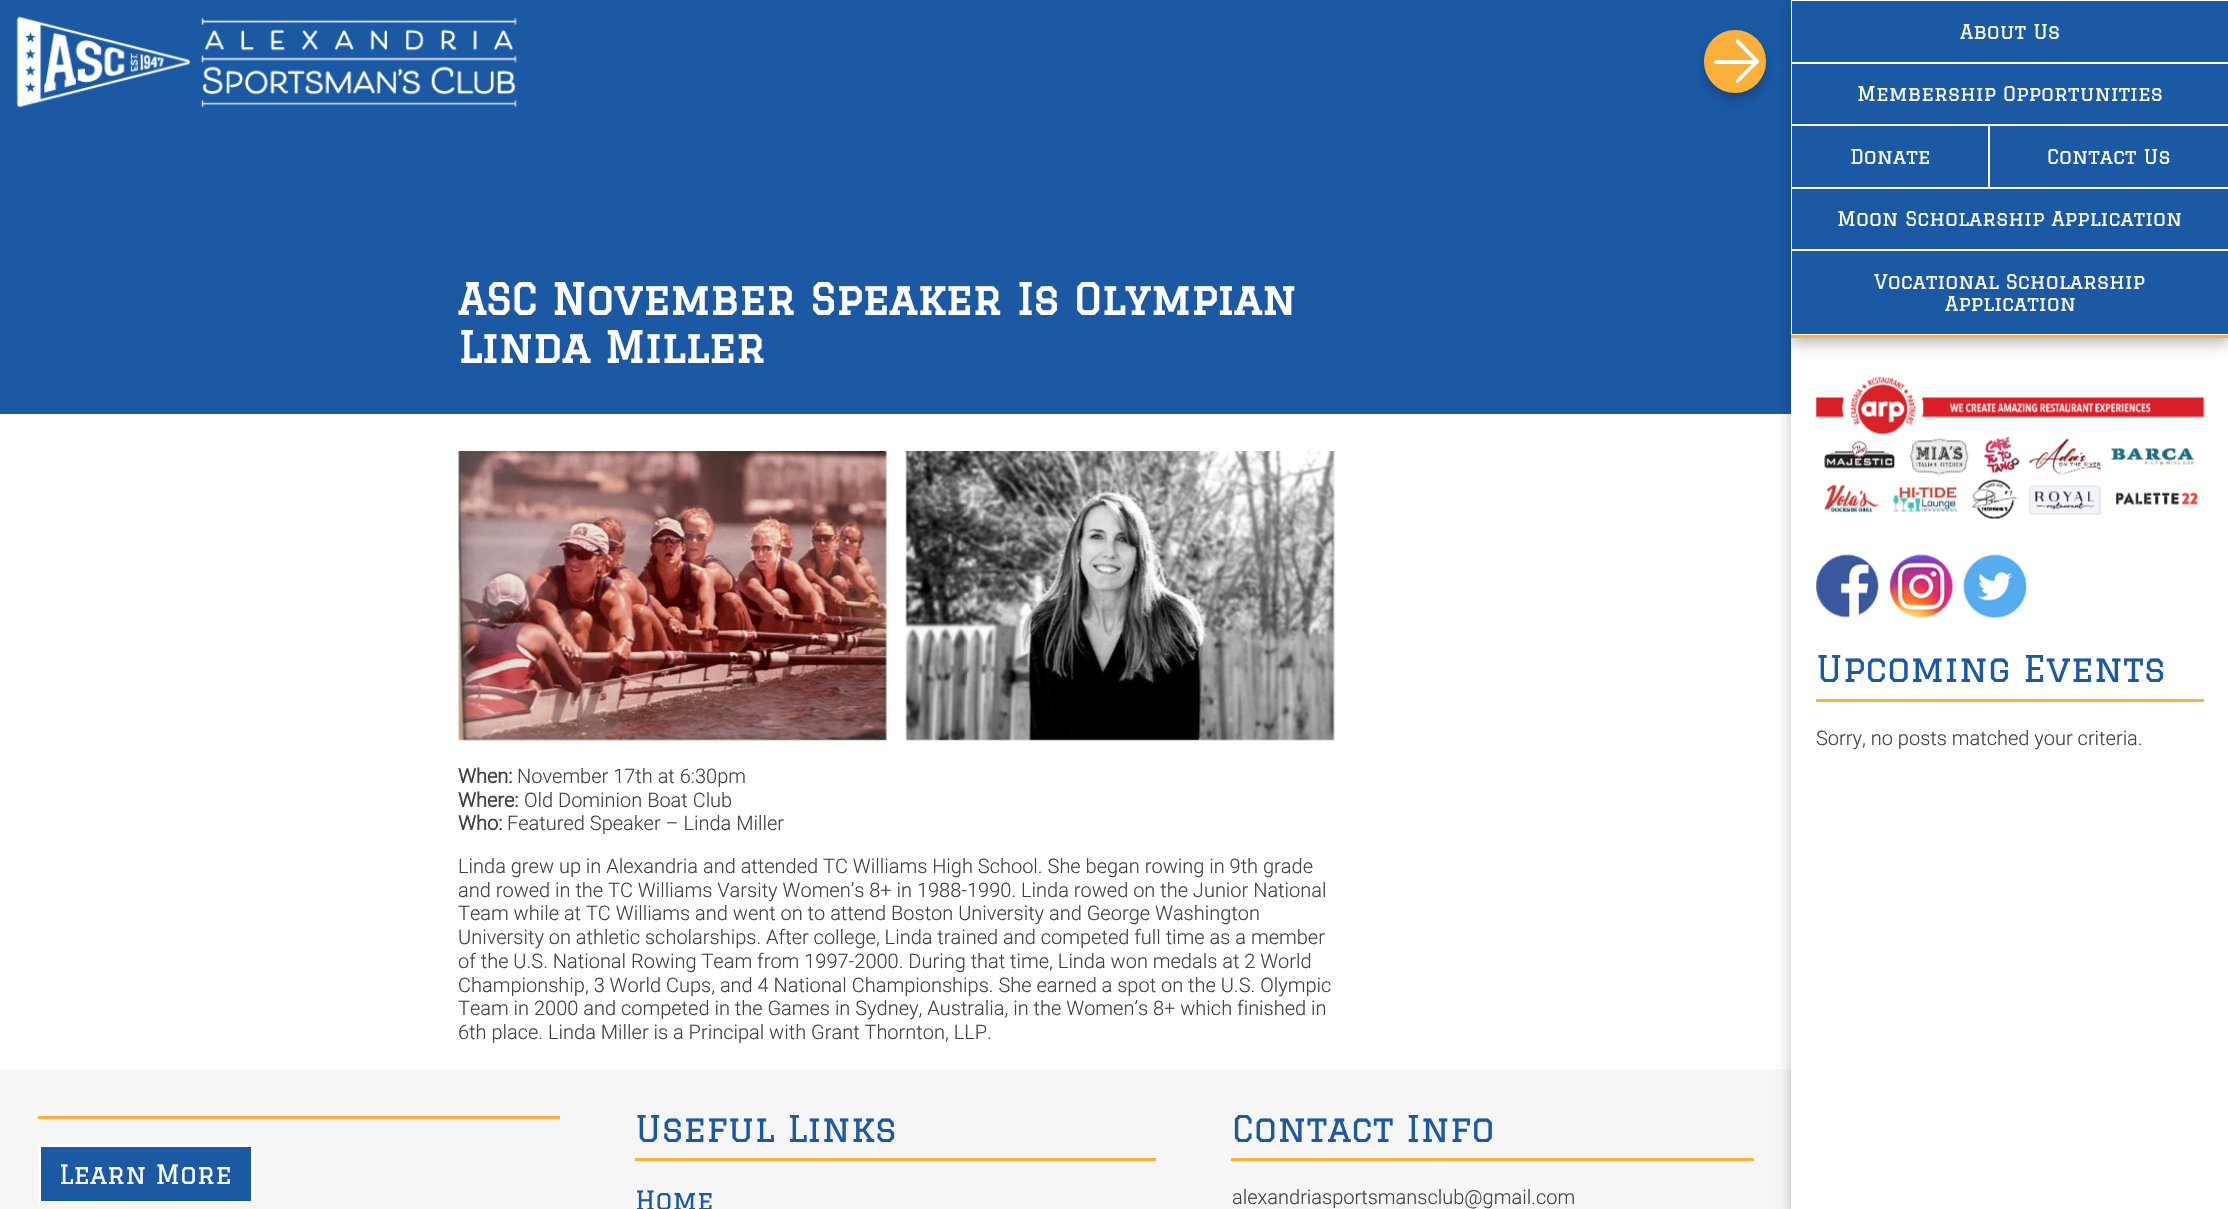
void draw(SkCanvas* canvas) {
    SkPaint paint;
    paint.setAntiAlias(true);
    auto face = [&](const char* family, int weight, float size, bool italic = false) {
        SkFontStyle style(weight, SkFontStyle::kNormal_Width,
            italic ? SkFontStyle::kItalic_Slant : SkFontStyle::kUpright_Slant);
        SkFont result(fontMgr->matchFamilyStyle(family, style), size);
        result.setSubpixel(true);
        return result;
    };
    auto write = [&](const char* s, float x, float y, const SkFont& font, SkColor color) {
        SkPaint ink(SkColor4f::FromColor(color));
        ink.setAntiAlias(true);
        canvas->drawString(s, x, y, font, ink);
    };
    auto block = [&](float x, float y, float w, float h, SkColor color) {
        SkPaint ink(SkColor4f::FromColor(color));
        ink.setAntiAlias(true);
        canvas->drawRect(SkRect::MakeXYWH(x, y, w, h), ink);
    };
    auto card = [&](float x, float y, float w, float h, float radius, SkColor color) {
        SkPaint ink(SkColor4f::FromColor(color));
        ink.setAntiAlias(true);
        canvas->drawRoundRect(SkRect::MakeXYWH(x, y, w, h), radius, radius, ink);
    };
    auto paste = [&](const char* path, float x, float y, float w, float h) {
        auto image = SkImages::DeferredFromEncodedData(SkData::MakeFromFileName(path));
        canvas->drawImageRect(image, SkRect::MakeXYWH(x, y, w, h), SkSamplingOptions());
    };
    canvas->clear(SK_ColorWHITE);
    block(0, 0, 1791, 414, SkColorSetRGB(27, 89, 165));
    paste("pic1.png", 16, 16, 501, 92);
    paint.setColor(SkColorSetARGB(64, 0, 0, 0));
    paint.setMaskFilter(SkMaskFilter::MakeBlur(kNormal_SkBlurStyle, 6));
    canvas->drawRoundRect(SkRect::MakeXYWH(1704, 36, 62, 63), 31, 31, paint);
    paint.setMaskFilter(nullptr);
    card(1704, 30, 62, 63, 31, SkColorSetRGB(251, 176, 59));
    paint.setColor(SK_ColorWHITE);
    canvas->drawPath(SkPathBuilder().moveTo(1739, 40).lineTo(1758.5f, 60).cubicTo(1759, 60.5f, 1759, 61, 1759, 61.5f).cubicTo(1757.5f, 65.5f, 1753, 59.5f, 1752.5f, 59).lineTo(1736, 42.5f).cubicTo(1735, 40.5f, 1737.5f, 38.5f, 1739, 40).close().detach(), paint);
    card(1714, 60, 44, 4, 2, SK_ColorWHITE);
    canvas->drawPath(SkPathBuilder().moveTo(1736.5f, 79.5f).lineTo(1756, 60).cubicTo(1756.5f, 59.5f, 1757, 59.5f, 1758, 60).cubicTo(1761.5f, 61.5f, 1755.5f, 65.5f, 1755, 66).lineTo(1738.5f, 82.5f).cubicTo(1737, 84, 1735, 81, 1736.5f, 79.5f).close().detach(), paint);
    block(0, 1069, 1791, 140, SkColorSetRGB(246, 246, 247));
    paint.setColor(SkColorSetARGB(64, 0, 0, 0));
    paint.setMaskFilter(SkMaskFilter::MakeBlur(kNormal_SkBlurStyle, 6));
    canvas->drawRect(SkRect::MakeXYWH(1791, 6, 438, 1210), paint);
    paint.setMaskFilter(nullptr);
    block(1791, 338, 437, 871, SK_ColorWHITE);
    canvas->save();
    canvas->clipRect(SkRect::MakeXYWH(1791, 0, 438, 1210));
    paint.setMaskFilter(SkMaskFilter::MakeBlur(kNormal_SkBlurStyle, 6));
    canvas->drawRect(SkRect::MakeXYWH(1791, 6, 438, 338), paint);
    paint.setMaskFilter(nullptr);
    canvas->restore();
    block(1792, 1, 436, 333, SkColorSetRGB(27, 89, 165));
    block(1791, 335, 437, 3, SkColorSetRGB(251, 176, 59));
    paint.setStyle(SkPaint::kStroke_Style);
    paint.setStrokeWidth(1);
    paint.setColor(SK_ColorWHITE);
    canvas->drawRect(SkRect::MakeXYWH(1791.5f, 0.5f, 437, 62), paint);
    auto kFont1 = face("Graduate", 400, 20);
    write("About Us", 1960, 39, kFont1, SK_ColorWHITE);
    canvas->drawRect(SkRect::MakeXYWH(1791.5f, 63.5f, 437, 61), paint);
    write("Membership Opportunities", 1857, 101, kFont1, SK_ColorWHITE);
    canvas->drawRect(SkRect::MakeXYWH(1791.5f, 125.5f, 197, 62), paint);
    write("Donate", 1850, 164, kFont1, SK_ColorWHITE);
    canvas->drawRect(SkRect::MakeXYWH(1989.5f, 125.5f, 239, 62), paint);
    write("Contact Us", 2047, 164, kFont1, SK_ColorWHITE);
    canvas->drawRect(SkRect::MakeXYWH(1791.5f, 188.5f, 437, 61), paint);
    write("Moon Scholarship Application", 1837, 226, kFont1, SK_ColorWHITE);
    canvas->drawRect(SkRect::MakeXYWH(1791.5f, 250.5f, 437, 84), paint);
    write("Vocational Scholarship", 1874, 289, kFont1, SK_ColorWHITE);
    write("Application", 1945, 311, kFont1, SK_ColorWHITE);
    paste("pic2.png", 1816, 376, 389, 143);
    paste("pic3.png", 1816, 554, 63, 64);
    paste("pic4.png", 1889, 554, 65, 64);
    paste("pic5.png", 1963, 554, 64, 64);
    auto kFont2 = face("Graduate", 400, 36.1f);
    write("Upcoming Events", 1816, 682, kFont2, SkColorSetRGB(27, 89, 165));
    block(1816, 699, 388, 3, SkColorSetRGB(251, 176, 59));
    auto kFont3 = face("Roboto", 300, 20);
    write("Sorry, no posts matched your criteria.", 1816, 745, kFont3, SkColorSetRGB(64, 64, 64));
    auto kFont4 = face("Graduate", 700, 42.4f);
    write("ASC November Speaker Is Olympian", 458, 315, kFont4, SK_ColorWHITE);
    write("Linda Miller", 458, 363, kFont4, SK_ColorWHITE);
    paste("pic6.png", 458, 451, 429, 290);
    paste("pic7.png", 905, 451, 430, 290);
    auto kFont5 = face("Roboto", 700, 20);
    write("When:", 458, 783, kFont5, SkColorSetRGB(64, 64, 64));
    write("November 17th at 6:30pm", 517, 783, kFont3, SkColorSetRGB(64, 64, 64));
    write("Where:", 458, 807, kFont5, SkColorSetRGB(64, 64, 64));
    write("Old Dominion Boat Club", 524, 807, kFont3, SkColorSetRGB(64, 64, 64));
    write("Who:", 458, 830, kFont5, SkColorSetRGB(64, 64, 64));
    write("Featured Speaker – Linda Miller", 507, 830, kFont3, SkColorSetRGB(64, 64, 64));
    write("Linda grew up in Alexandria and attended TC Williams High School. She began rowing in 9th grade", 458, 873, kFont3, SkColorSetRGB(64, 64, 64));
    write("and rowed in the TC Williams Varsity Women’s 8+ in 1988-1990. Linda rowed on the Junior National", 458, 897, kFont3, SkColorSetRGB(64, 64, 64));
    write("Team while at TC Williams and went on to attend Boston University and George Washington", 458, 920, kFont3, SkColorSetRGB(64, 64, 64));
    write("University on athletic scholarships. After college, Linda trained and competed full time as a member", 458, 944, kFont3, SkColorSetRGB(64, 64, 64));
    write("of the U.S. National Rowing Team from 1997-2000. During that time, Linda won medals at 2 World", 458, 968, kFont3, SkColorSetRGB(64, 64, 64));
    write("Championship, 3 World Cups, and 4 National Championships. She earned a spot on the U.S. Olympic", 458, 992, kFont3, SkColorSetRGB(64, 64, 64));
    write("Team in 2000 and competed in the Games in Sydney, Australia, in the Women’s 8+ which finished in", 458, 1015, kFont3, SkColorSetRGB(64, 64, 64));
    write("6th place. Linda Miller is a Principal with Grant Thornton, LLP.", 458, 1039, kFont3, SkColorSetRGB(64, 64, 64));
    block(38, 1116, 522, 3, SkColorSetRGB(251, 176, 59));
    paint.setStyle(SkPaint::kFill_Style);
    paint.setColor(SkColorSetRGB(27, 89, 165));
    canvas->drawRect(SkRect::MakeXYWH(39.5f, 1145.5f, 213, 57), paint);
    paint.setStyle(SkPaint::kStroke_Style);
    paint.setStrokeWidth(3);
    paint.setColor(SK_ColorWHITE);
    canvas->drawRect(SkRect::MakeXYWH(39.5f, 1145.5f, 213, 57), paint);
    auto kFont6 = face("Graduate", 400, 26);
    write("Learn More", 59, 1184, kFont6, SK_ColorWHITE);
    write("Useful Links", 635, 1142, kFont2, SkColorSetRGB(27, 89, 165));
    block(635, 1158, 521, 3, SkColorSetRGB(251, 176, 59));
    write("Home", 635, 1210, kFont6, SkColorSetRGB(27, 89, 165));
    write("Contact Info", 1232, 1142, kFont2, SkColorSetRGB(27, 89, 165));
    block(1231, 1158, 523, 3, SkColorSetRGB(251, 176, 59));
    write("alexandriasportsmansclub@gmail.com", 1232, 1204, kFont3, SkColorSetRGB(64, 64, 64));
}
